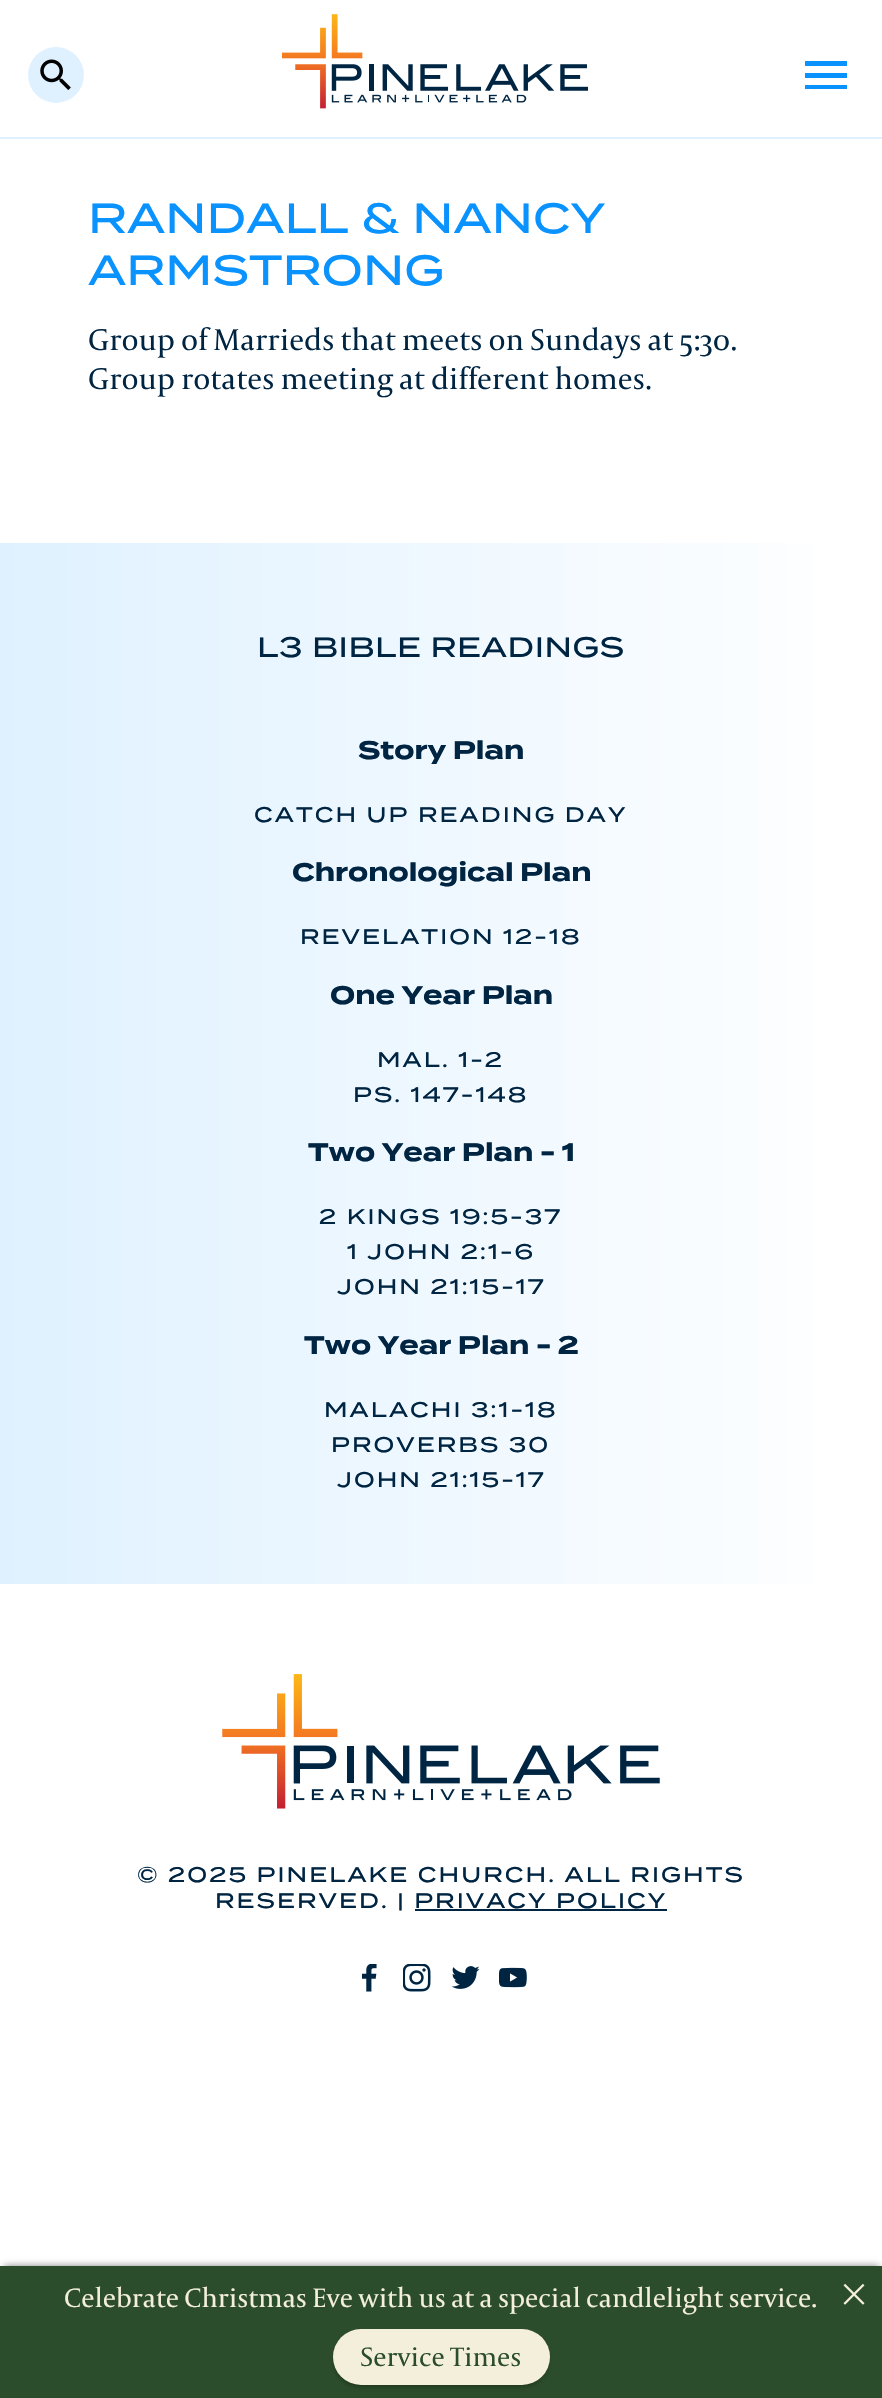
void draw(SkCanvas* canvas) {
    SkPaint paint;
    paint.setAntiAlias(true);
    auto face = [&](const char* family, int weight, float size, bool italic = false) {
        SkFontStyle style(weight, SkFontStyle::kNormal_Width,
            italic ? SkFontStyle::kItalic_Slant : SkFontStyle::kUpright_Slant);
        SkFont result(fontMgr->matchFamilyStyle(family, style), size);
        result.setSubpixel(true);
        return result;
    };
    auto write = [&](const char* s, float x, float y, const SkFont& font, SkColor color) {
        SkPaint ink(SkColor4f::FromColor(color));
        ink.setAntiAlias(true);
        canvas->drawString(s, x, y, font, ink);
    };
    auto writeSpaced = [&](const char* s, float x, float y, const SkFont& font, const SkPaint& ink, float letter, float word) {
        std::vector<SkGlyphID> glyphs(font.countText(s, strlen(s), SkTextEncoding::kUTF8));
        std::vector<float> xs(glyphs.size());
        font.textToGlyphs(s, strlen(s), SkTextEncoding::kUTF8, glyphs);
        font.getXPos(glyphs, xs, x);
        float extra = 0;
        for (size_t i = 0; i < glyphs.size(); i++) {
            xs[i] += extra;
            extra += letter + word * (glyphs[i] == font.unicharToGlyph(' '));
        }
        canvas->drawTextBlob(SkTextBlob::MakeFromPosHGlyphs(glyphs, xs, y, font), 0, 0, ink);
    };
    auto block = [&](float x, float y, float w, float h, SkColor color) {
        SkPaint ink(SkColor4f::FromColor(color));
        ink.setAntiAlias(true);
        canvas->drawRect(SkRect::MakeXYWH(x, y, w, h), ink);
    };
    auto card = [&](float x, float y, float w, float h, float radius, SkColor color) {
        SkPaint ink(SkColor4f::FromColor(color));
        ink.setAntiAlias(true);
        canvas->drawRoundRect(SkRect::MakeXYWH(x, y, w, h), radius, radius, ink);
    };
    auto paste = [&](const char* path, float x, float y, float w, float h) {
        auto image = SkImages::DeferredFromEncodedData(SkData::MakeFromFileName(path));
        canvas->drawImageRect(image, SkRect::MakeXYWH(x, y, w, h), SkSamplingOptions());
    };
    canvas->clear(SK_ColorWHITE);
    block(0, 137, 882, 2, SkColorSetRGB(223, 241, 255));
    paint.setColor(SkColorSetRGB(223, 241, 255));
    canvas->drawCircle(56, 75, 28, paint);
    paste("pic1.png", 40, 59, 31, 31);
    paste("pic2.png", 282, 14, 306, 95);
    paint.setColor(SkColorSetRGB(10, 147, 254));
    canvas->drawPath(SkPathBuilder().moveTo(805, 89).lineTo(847, 89).lineTo(847, 85).lineTo(805, 85).close().moveTo(805, 78).lineTo(847, 78).lineTo(847, 73).lineTo(805, 73).close().moveTo(805, 61).lineTo(805, 66).lineTo(847, 66).lineTo(847, 61).close().detach(), paint);
    auto kFont1 = face("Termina", 500, 42);
    writeSpaced("RANDALL & NANCY", 88, 233, kFont1, paint, 0.1f, 0);
    writeSpaced("ARMSTRONG", 88, 285, kFont1, paint, 0.1f, 0);
    auto kFont2 = face("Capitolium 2", 400, 31.5f);
    write("Group of Marrieds that meets on Sundays at 5:30.", 88, 350, kFont2, SkColorSetRGB(0, 37, 66));
    write("Group rotates meeting at different homes.", 88, 389, kFont2, SkColorSetRGB(0, 37, 66));
    {
        const SkColor colors[] = {SkColorSetRGB(223, 241, 255), SK_ColorWHITE};
        const float stops[] = {0, 1};
        const SkPoint ends[] = {{0, 1063}, {882, 1063}};
        paint.setShader(SkGradientShader::MakeLinear(ends, colors, stops, 2, SkTileMode::kClamp));
        paint.setAlpha(255);
    }
    canvas->drawRect(SkRect::MakeXYWH(0, 543, 813, 1041), paint);
    auto kFont3 = face("Termina", 500, 28);
    paint.setShader(nullptr);
    paint.setColor(SkColorSetRGB(0, 37, 66));
    writeSpaced("L3 BIBLE READINGS", 257, 657, kFont3, paint, 0.6f, 0);
    auto kFont4 = face("Termina", 700, 25.25f);
    write("Story Plan", 358, 759, kFont4, SkColorSetRGB(0, 37, 66));
    auto kFont5 = face("Termina", 500, 21);
    writeSpaced("CATCH UP READING DAY", 254, 822, kFont5, paint, 2.1f, 0);
    write("Chronological Plan", 292, 881, kFont4, SkColorSetRGB(0, 37, 66));
    writeSpaced("REVELATION 12-18", 300, 944, kFont5, paint, 2.1f, 0);
    write("One Year Plan", 330, 1004, kFont4, SkColorSetRGB(0, 37, 66));
    writeSpaced("MAL. 1-2", 377, 1067, kFont5, paint, 2.1f, 0);
    writeSpaced("PS. 147-148", 353, 1102, kFont5, paint, 2.1f, 0);
    write("Two Year Plan - 1", 308, 1161, kFont4, SkColorSetRGB(0, 37, 66));
    writeSpaced("2 KINGS 19:5-37", 319, 1224, kFont5, paint, 2.1f, 0);
    writeSpaced("1 JOHN 2:1-6", 347, 1259, kFont5, paint, 2.1f, 0);
    writeSpaced("JOHN 21:15-17", 337, 1294, kFont5, paint, 2.1f, 0);
    write("Two Year Plan - 2", 304, 1354, kFont4, SkColorSetRGB(0, 37, 66));
    writeSpaced("MALACHI 3:1-18", 324, 1417, kFont5, paint, 2.1f, 0);
    writeSpaced("PROVERBS 30", 331, 1452, kFont5, paint, 2.1f, 0);
    writeSpaced("JOHN 21:15-17", 337, 1487, kFont5, paint, 2.1f, 0);
    paste("pic3.png", 222, 1674, 438, 135);
    writeSpaced("© 2025 PINELAKE CHURCH. ALL RIGHTS", 137, 1882, kFont5, paint, 2.1f, 0);
    writeSpaced("RESERVED. | PRIVACY POLICY", 215, 1908, kFont5, paint, 2.1f, 0);
    block(415, 1909, 252, 2, SkColorSetRGB(0, 37, 66));
    paste("pic4.png", 362, 1964, 15, 28);
    paste("pic5.png", 403, 1964, 28, 28);
    paste("pic6.png", 452, 1966, 28, 23);
    paste("pic7.png", 499, 1967, 28, 21);
    paint.setColor(SkColorSetARGB(128, 0, 0, 0));
    paint.setMaskFilter(SkMaskFilter::MakeBlur(kNormal_SkBlurStyle, 3.5f));
    canvas->drawRect(SkRect::MakeXYWH(4, 2266, 875, 126), paint);
    paint.setMaskFilter(nullptr);
    block(0, 2266, 882, 132, SkColorSetRGB(44, 77, 43));
    auto kFont6 = face("Capitolium 2", 400, 28);
    write("Celebrate Christmas Eve with us at a special candlelight service.", 64, 2307, kFont6, SkColorSetRGB(243, 239, 219));
    paint.setMaskFilter(SkMaskFilter::MakeBlur(kNormal_SkBlurStyle, 3.5f));
    canvas->drawRoundRect(SkRect::MakeXYWH(336, 2336, 210, 49), 24.5f, 24.5f, paint);
    paint.setMaskFilter(nullptr);
    card(333, 2329, 217, 56, 28, SkColorSetRGB(243, 239, 219));
    write("Service Times", 360, 2366, kFont6, SkColorSetRGB(44, 77, 43));
    paste("pic8.png", 843, 2283, 22, 22);
}
